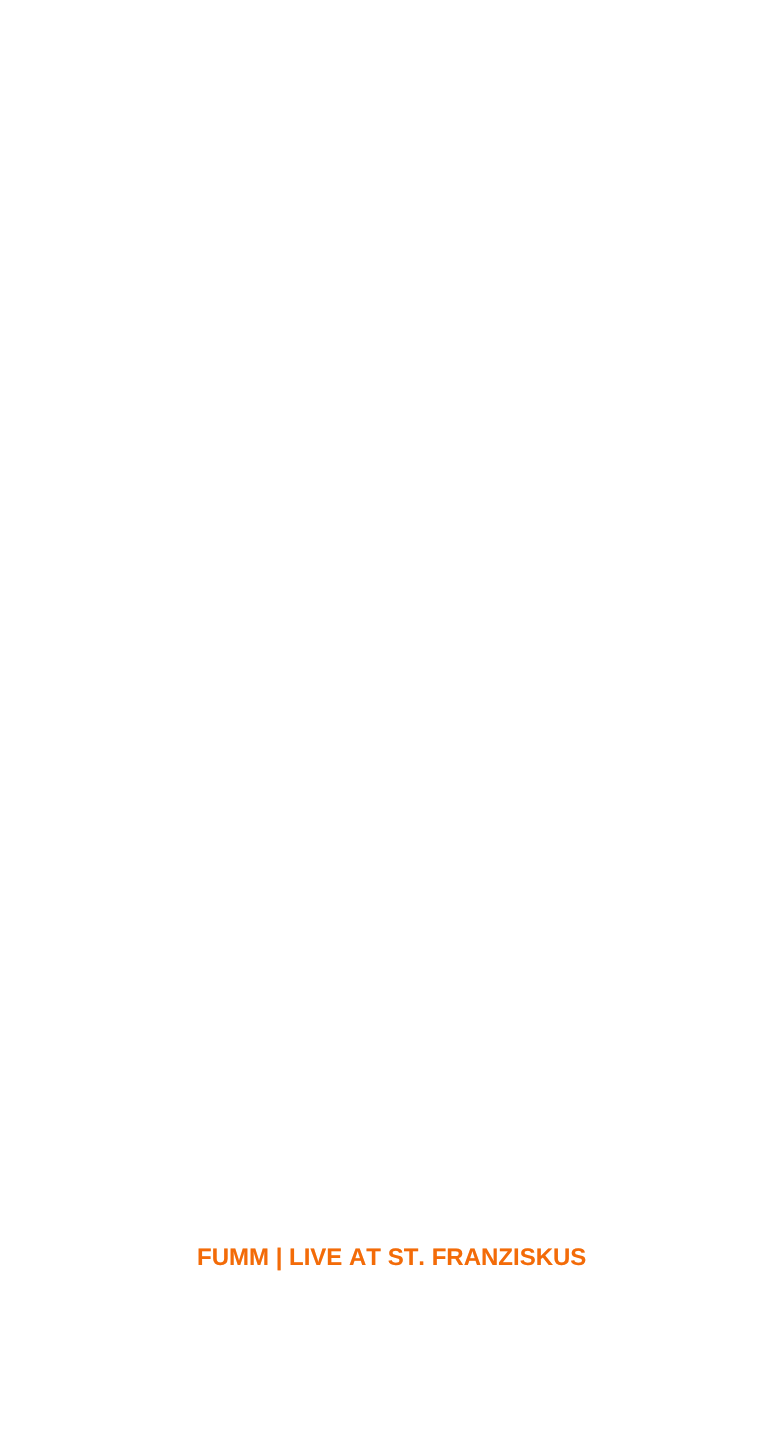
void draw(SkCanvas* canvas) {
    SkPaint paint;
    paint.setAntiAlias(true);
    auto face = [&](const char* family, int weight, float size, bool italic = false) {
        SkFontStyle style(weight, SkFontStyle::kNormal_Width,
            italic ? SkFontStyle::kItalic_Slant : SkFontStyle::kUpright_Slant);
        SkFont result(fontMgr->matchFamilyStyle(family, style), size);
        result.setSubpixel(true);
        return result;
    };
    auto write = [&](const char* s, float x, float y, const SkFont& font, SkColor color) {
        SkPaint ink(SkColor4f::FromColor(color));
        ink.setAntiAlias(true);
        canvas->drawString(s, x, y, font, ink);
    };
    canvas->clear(SK_ColorWHITE);
    auto kFont1 = face("Liberation Sans", 700, 24);
    write("FUMM | LIVE AT ST. FRANZISKUS", 197, 1265, kFont1, SkColorSetRGB(243, 107, 8));
}
